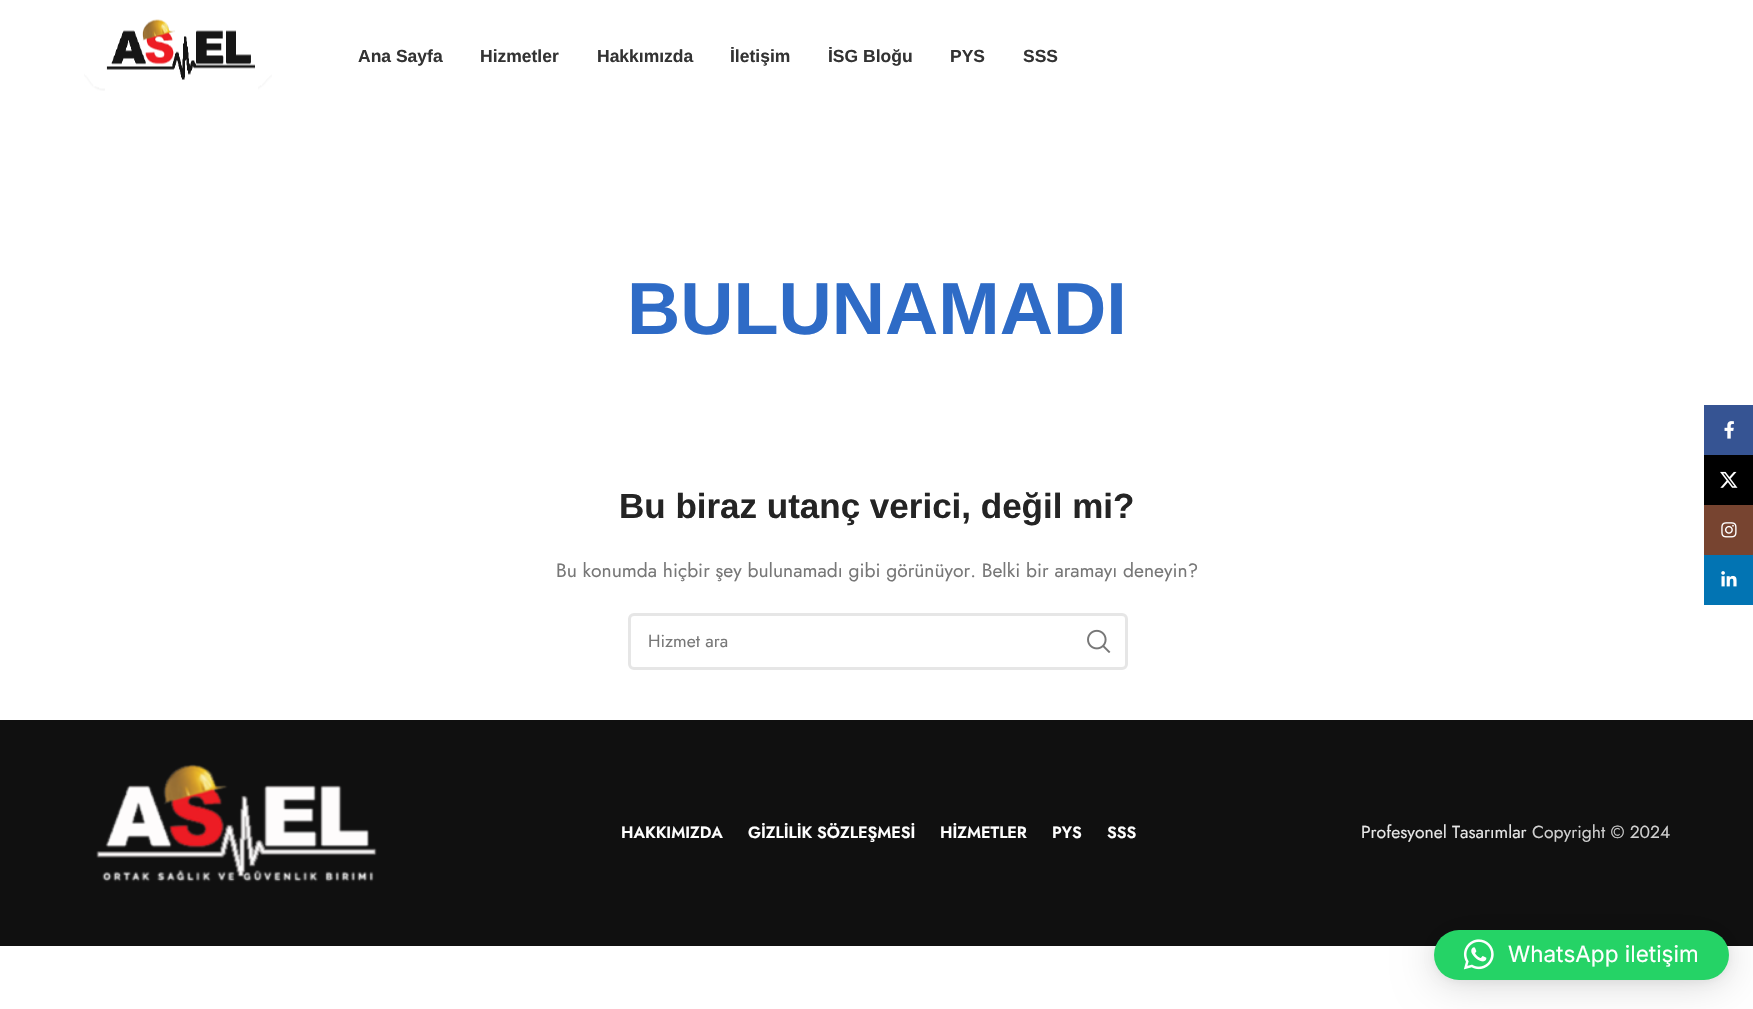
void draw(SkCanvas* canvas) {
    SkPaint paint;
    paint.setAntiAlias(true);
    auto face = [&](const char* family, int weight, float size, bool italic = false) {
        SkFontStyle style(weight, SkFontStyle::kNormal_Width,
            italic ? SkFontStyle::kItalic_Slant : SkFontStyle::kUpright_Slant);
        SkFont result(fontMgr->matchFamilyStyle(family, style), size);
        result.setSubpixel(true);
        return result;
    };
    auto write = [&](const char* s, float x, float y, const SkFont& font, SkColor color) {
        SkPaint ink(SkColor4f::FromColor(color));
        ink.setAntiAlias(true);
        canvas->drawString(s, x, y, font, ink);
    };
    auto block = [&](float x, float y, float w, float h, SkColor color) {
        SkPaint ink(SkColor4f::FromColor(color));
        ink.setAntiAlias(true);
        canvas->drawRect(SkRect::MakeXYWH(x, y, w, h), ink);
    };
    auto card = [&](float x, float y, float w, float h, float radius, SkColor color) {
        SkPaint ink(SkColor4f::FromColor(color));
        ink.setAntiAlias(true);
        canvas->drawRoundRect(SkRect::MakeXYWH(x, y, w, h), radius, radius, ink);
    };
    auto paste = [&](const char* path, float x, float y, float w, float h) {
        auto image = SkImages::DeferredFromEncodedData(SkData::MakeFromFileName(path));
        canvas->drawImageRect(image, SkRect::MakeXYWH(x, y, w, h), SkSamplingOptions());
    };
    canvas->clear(SK_ColorWHITE);
    paste("pic1.png", 84, 19, 188, 72);
    auto kFont1 = face("Liberation Sans", 700, 17.5f);
    write("Ana Sayfa", 358, 62, kFont1, SkColorSetRGB(51, 51, 51));
    write("Hizmetler", 480, 62, kFont1, SkColorSetRGB(51, 51, 51));
    write("Hakkımızda", 597, 62, kFont1, SkColorSetRGB(51, 51, 51));
    write("İletişim", 730, 62, kFont1, SkColorSetRGB(51, 51, 51));
    write("İSG Bloğu", 828, 62, kFont1, SkColorSetRGB(51, 51, 51));
    write("PYS", 950, 62, kFont1, SkColorSetRGB(51, 51, 51));
    write("SSS", 1023, 62, kFont1, SkColorSetRGB(51, 51, 51));
    auto kFont2 = face("Liberation Sans", 700, 73.75f);
    write("BULUNAMADI", 627, 334, kFont2, SkColorSetRGB(46, 107, 198));
    auto kFont3 = face("Liberation Sans", 700, 35);
    write("Bu biraz utanç verici, değil mi?", 619, 518, kFont3, SkColorSetRGB(36, 36, 36));
    auto kFont4 = face("Jost", 400, 19.25f);
    write("Bu konumda hiçbir şey bulunamadı gibi görünüyor. Belki bir aramayı deneyin?", 556, 577, kFont4, SkColorSetRGB(119, 119, 119));
    paint.setStyle(SkPaint::kStroke_Style);
    paint.setStrokeWidth(3);
    paint.setColor(SkColorSetRGB(230, 230, 230));
    canvas->drawRoundRect(SkRect::MakeXYWH(629.5f, 614.5f, 497, 54), 4.5f, 4.5f, paint);
    auto kFont5 = face("Jost", 400, 17.5f);
    write("Hizmet ara", 648, 647, kFont5, SkColorSetRGB(119, 119, 119));
    paste("pic2.png", 1087, 629, 24, 24);
    block(0, 720, 1753, 226, SkColorSetRGB(16, 16, 16));
    paste("pic3.png", 96, 764, 281, 118);
    auto kFont6 = face("Jost", 600, 16.25f);
    write("HAKKIMIZDA", 621, 838, kFont6, SK_ColorWHITE);
    write("GİZLİLİK SÖZLEŞMESİ", 748, 838, kFont6, SK_ColorWHITE);
    write("HİZMETLER", 940, 838, kFont6, SK_ColorWHITE);
    write("PYS", 1052, 838, kFont6, SK_ColorWHITE);
    write("SSS", 1107, 838, kFont6, SK_ColorWHITE);
    write("Profesyonel Tasarımlar", 1361, 838, kFont5, SkColorSetRGB(231, 231, 231));
    write("Copyright © 2024", 1532, 838, kFont5, SkColorSetRGB(207, 207, 207));
    block(1704, 405, 49, 50, SkColorSetRGB(54, 84, 147));
    paste("pic4.png", 1724, 421, 10, 18);
    block(1704, 455, 49, 50, SK_ColorBLACK);
    paste("pic5.png", 1720, 471, 18, 17);
    block(1704, 505, 49, 50, SkColorSetRGB(119, 68, 48));
    paste("pic6.png", 1721, 522, 16, 16);
    block(1704, 555, 49, 50, SkColorSetRGB(2, 116, 179));
    paste("pic7.png", 1721, 571, 16, 16);
    paint.setStyle(SkPaint::kFill_Style);
    paint.setColor(SkColorSetARGB(41, 0, 0, 0));
    paint.setMaskFilter(SkMaskFilter::MakeBlur(kNormal_SkBlurStyle, 20));
    canvas->drawRoundRect(SkRect::MakeXYWH(1434, 933, 295, 50), 25, 25, paint);
    paint.setMaskFilter(nullptr);
    paint.setColor(SkColorSetARGB(15, 0, 0, 0));
    paint.setMaskFilter(SkMaskFilter::MakeBlur(kNormal_SkBlurStyle, 4));
    canvas->drawRoundRect(SkRect::MakeXYWH(1434, 931, 295, 50), 25, 25, paint);
    paint.setMaskFilter(nullptr);
    card(1434, 930, 295, 50, 25, SkColorSetRGB(37, 211, 102));
    paste("pic8.png", 1463, 939, 31, 31);
    auto kFont7 = face("Inter", 400, 22.5f);
    write("WhatsApp iletişim", 1508, 962, kFont7, SK_ColorWHITE);
}
